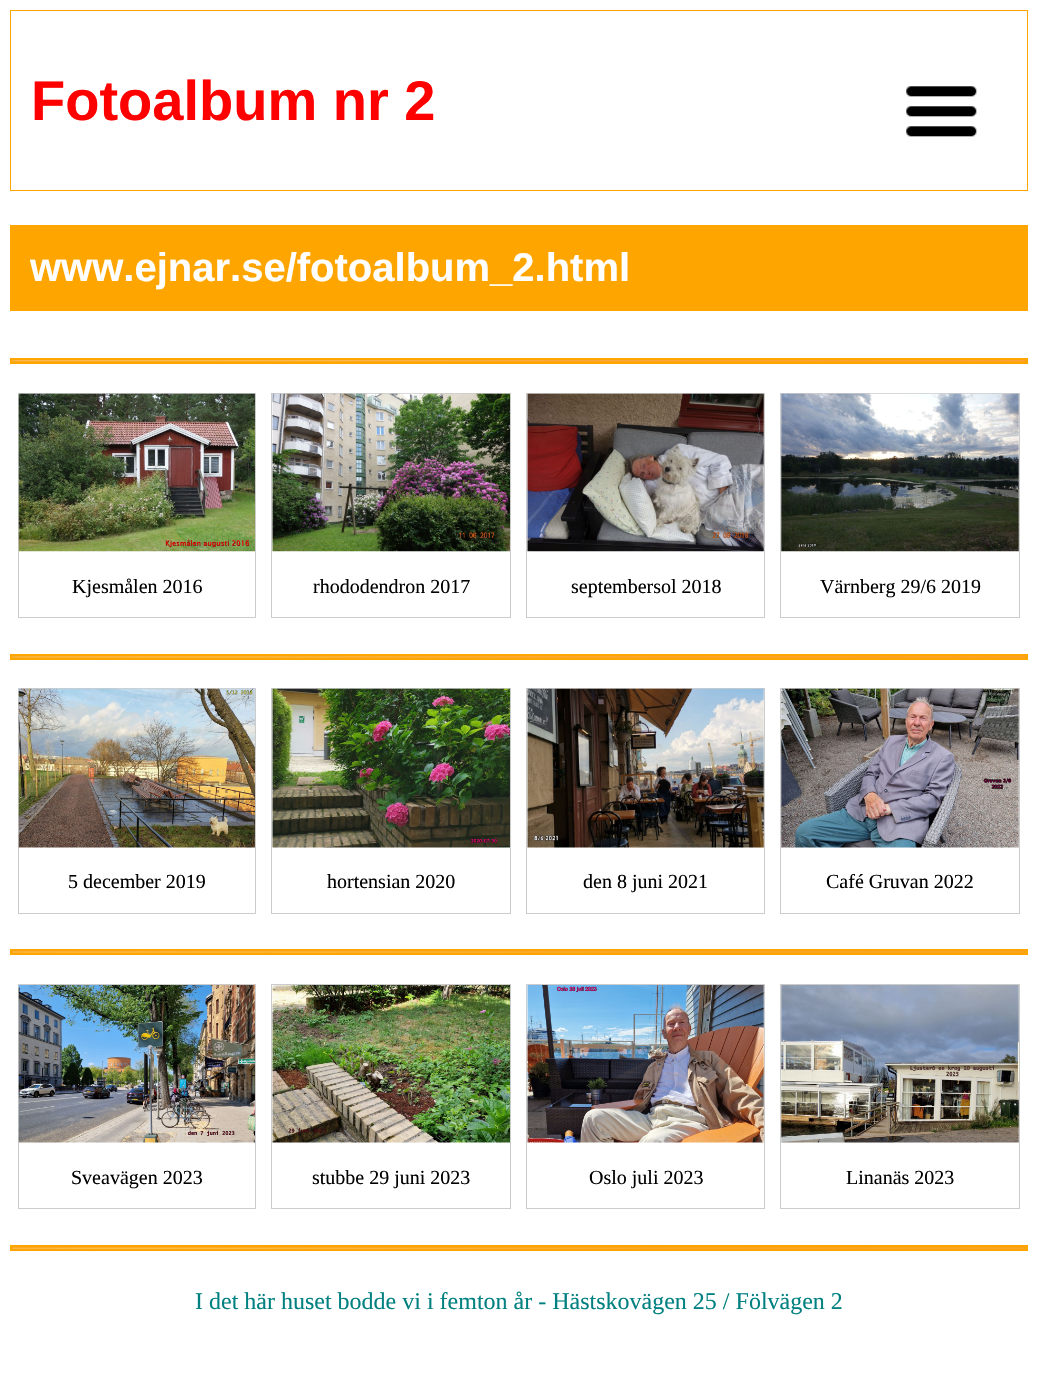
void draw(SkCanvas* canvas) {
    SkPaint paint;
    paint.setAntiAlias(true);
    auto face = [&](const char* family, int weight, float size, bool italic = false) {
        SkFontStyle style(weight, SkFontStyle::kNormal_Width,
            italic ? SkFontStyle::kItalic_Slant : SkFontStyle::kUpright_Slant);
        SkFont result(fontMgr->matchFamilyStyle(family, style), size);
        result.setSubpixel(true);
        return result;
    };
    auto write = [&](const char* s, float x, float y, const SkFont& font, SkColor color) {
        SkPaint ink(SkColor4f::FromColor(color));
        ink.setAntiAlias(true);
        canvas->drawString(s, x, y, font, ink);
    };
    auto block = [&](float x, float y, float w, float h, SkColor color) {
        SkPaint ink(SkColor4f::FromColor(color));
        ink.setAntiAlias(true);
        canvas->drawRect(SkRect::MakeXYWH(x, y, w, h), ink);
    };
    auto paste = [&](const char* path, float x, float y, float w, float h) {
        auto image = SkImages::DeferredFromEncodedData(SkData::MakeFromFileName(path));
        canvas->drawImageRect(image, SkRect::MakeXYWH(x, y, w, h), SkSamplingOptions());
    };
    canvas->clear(SK_ColorWHITE);
    paint.setStyle(SkPaint::kStroke_Style);
    paint.setStrokeWidth(1);
    paint.setColor(SkColorSetRGB(255, 165, 0));
    canvas->drawRect(SkRect::MakeXYWH(10.5f, 10.5f, 1017, 180), paint);
    auto kFont1 = face("Liberation Sans", 700, 56);
    write("Fotoalbum nr 2", 31, 120, kFont1, SkColorSetRGB(255, 0, 0));
    paste("pic1.png", 906, 86, 71, 51);
    block(10, 225, 1018, 86, SkColorSetRGB(255, 165, 0));
    auto kFont2 = face("Liberation Sans", 700, 40);
    write("www.ejnar.se/fotoalbum_2.html", 30, 281, kFont2, SK_ColorWHITE);
    paint.setStrokeWidth(3);
    canvas->drawRect(SkRect::MakeXYWH(11.5f, 359.5f, 1015, 3), paint);
    paste("pic2.png", 12, 360, 1013, 2);
    paint.setStrokeWidth(1);
    paint.setColor(SkColorSetRGB(204, 204, 204));
    canvas->drawRect(SkRect::MakeXYWH(18.5f, 393.5f, 237, 224), paint);
    paste("pic3.png", 18, 393, 237, 159);
    auto kFont3 = face("Liberation Serif", 400, 20);
    write("Kjesmålen 2016", 72, 593, kFont3, SK_ColorBLACK);
    canvas->drawRect(SkRect::MakeXYWH(271.5f, 393.5f, 239, 224), paint);
    paste("pic4.png", 272, 393, 238, 159);
    write("rhododendron 2017", 313, 593, kFont3, SK_ColorBLACK);
    canvas->drawRect(SkRect::MakeXYWH(526.5f, 393.5f, 238, 224), paint);
    paste("pic5.png", 527, 393, 237, 159);
    write("septembersol 2018", 571, 593, kFont3, SK_ColorBLACK);
    canvas->drawRect(SkRect::MakeXYWH(780.5f, 393.5f, 239, 224), paint);
    paste("pic6.png", 781, 393, 238, 159);
    write("Värnberg 29/6 2019", 820, 593, kFont3, SK_ColorBLACK);
    paint.setStrokeWidth(3);
    paint.setColor(SkColorSetRGB(255, 165, 0));
    canvas->drawRect(SkRect::MakeXYWH(11.5f, 655.5f, 1015, 3), paint);
    paste("pic7.png", 12, 656, 1013, 2);
    paint.setStrokeWidth(1);
    paint.setColor(SkColorSetRGB(204, 204, 204));
    canvas->drawRect(SkRect::MakeXYWH(18.5f, 688.5f, 237, 225), paint);
    paste("pic8.png", 18, 688, 237, 160);
    write("5 december 2019", 68, 888, kFont3, SK_ColorBLACK);
    canvas->drawRect(SkRect::MakeXYWH(271.5f, 688.5f, 239, 225), paint);
    paste("pic9.png", 272, 688, 238, 160);
    write("hortensian 2020", 327, 888, kFont3, SK_ColorBLACK);
    canvas->drawRect(SkRect::MakeXYWH(526.5f, 688.5f, 238, 225), paint);
    paste("pic10.png", 527, 688, 237, 160);
    write("den 8 juni 2021", 583, 888, kFont3, SK_ColorBLACK);
    canvas->drawRect(SkRect::MakeXYWH(780.5f, 688.5f, 239, 225), paint);
    paste("pic11.png", 781, 688, 238, 160);
    write("Café Gruvan 2022", 826, 888, kFont3, SK_ColorBLACK);
    paint.setStrokeWidth(3);
    paint.setColor(SkColorSetRGB(255, 165, 0));
    canvas->drawRect(SkRect::MakeXYWH(11.5f, 950.5f, 1015, 3), paint);
    paste("pic7.png", 12, 951, 1013, 2);
    paint.setStrokeWidth(1);
    paint.setColor(SkColorSetRGB(204, 204, 204));
    canvas->drawRect(SkRect::MakeXYWH(18.5f, 984.5f, 237, 224), paint);
    paste("pic12.png", 18, 985, 237, 158);
    write("Sveavägen 2023", 71, 1184, kFont3, SK_ColorBLACK);
    canvas->drawRect(SkRect::MakeXYWH(271.5f, 984.5f, 239, 224), paint);
    paste("pic13.png", 272, 985, 238, 158);
    write("stubbe 29 juni 2023", 312, 1184, kFont3, SK_ColorBLACK);
    canvas->drawRect(SkRect::MakeXYWH(526.5f, 984.5f, 238, 224), paint);
    paste("pic14.png", 527, 985, 237, 158);
    write("Oslo juli 2023", 589, 1184, kFont3, SK_ColorBLACK);
    canvas->drawRect(SkRect::MakeXYWH(780.5f, 984.5f, 239, 224), paint);
    paste("pic15.png", 781, 985, 238, 158);
    write("Linanäs 2023", 846, 1184, kFont3, SK_ColorBLACK);
    paint.setStrokeWidth(3);
    paint.setColor(SkColorSetRGB(255, 165, 0));
    canvas->drawRect(SkRect::MakeXYWH(11.5f, 1246.5f, 1015, 3), paint);
    paste("pic16.png", 12, 1247, 1013, 2);
    auto kFont4 = face("Liberation Serif", 400, 24);
    write("I det här huset bodde vi i femton år - Hästskovägen 25 / Fölvägen 2", 195, 1309, kFont4, SkColorSetRGB(0, 128, 128));
}
